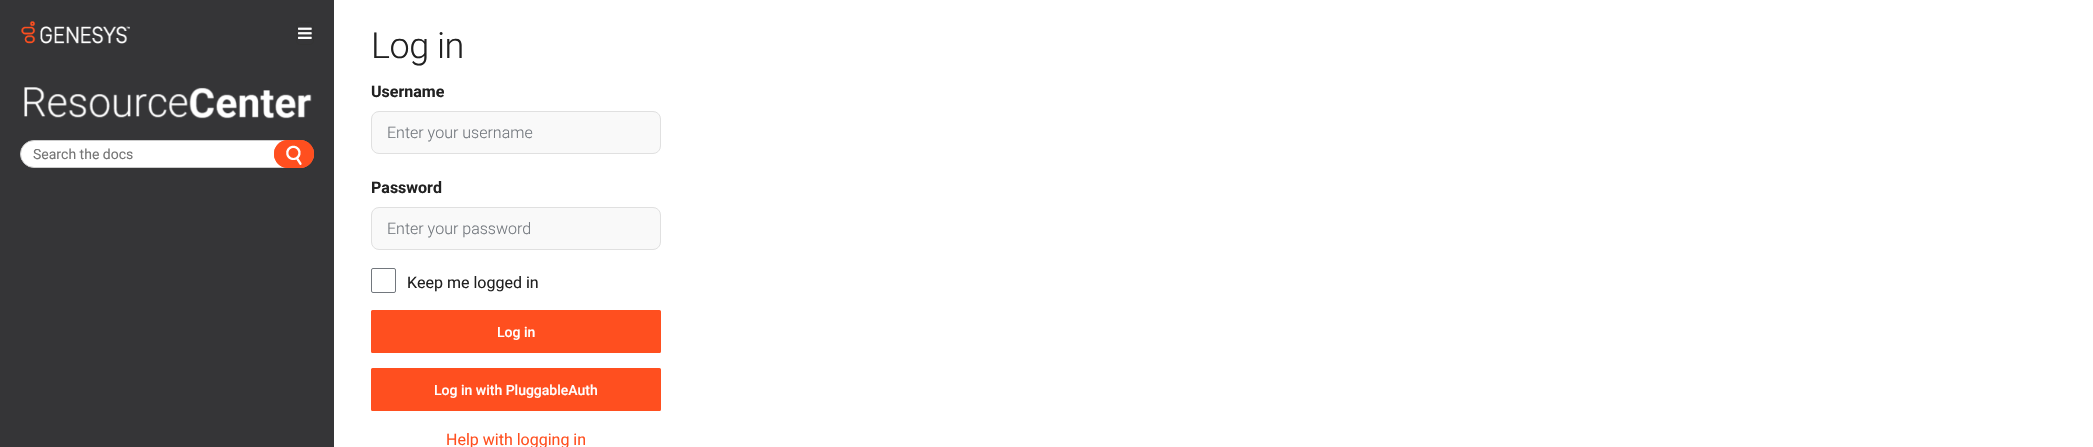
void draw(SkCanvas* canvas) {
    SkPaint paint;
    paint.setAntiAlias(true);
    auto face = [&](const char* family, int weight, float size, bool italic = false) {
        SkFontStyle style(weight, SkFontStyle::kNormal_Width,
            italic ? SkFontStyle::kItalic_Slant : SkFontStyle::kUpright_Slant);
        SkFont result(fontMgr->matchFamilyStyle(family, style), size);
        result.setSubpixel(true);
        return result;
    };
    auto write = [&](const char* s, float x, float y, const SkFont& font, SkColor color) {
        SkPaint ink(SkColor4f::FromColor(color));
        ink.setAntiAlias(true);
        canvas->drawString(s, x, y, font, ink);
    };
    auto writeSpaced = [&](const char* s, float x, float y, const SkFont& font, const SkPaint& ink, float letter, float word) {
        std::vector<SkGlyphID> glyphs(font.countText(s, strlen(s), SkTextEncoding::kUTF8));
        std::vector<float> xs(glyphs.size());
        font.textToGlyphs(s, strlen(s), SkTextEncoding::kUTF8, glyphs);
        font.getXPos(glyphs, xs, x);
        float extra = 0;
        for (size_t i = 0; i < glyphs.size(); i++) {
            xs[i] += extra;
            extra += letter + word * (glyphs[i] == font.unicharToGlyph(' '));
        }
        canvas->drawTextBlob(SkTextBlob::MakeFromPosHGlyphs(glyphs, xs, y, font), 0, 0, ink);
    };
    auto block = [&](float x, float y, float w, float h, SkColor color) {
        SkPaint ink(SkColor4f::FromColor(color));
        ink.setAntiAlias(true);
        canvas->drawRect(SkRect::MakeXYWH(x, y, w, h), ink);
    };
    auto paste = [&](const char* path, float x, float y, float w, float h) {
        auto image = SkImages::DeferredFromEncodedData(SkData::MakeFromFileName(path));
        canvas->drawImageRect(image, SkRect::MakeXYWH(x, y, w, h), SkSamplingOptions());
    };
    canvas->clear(SK_ColorWHITE);
    block(0, 0, 334, 447, SkColorSetRGB(53, 53, 55));
    paste("pic1.png", 21, 21, 109, 23);
    paint.setStyle(SkPaint::kStroke_Style);
    paint.setStrokeWidth(1);
    paint.setColor(SkColorSetRGB(51, 51, 51));
    canvas->drawRoundRect(SkRect::MakeXYWH(296.5f, 22.5f, 17, 22), 3.5f, 3.5f, paint);
    paste("pic2.png", 298, 27, 14, 12);
    paste("pic3.png", 24, 87, 288, 32);
    paint.setStyle(SkPaint::kFill_Style);
    paint.setColor(SK_ColorWHITE);
    canvas->drawRoundRect(SkRect::MakeXYWH(20.5f, 140.5f, 293, 27), 13.5f, 13.5f, paint);
    paint.setStyle(SkPaint::kStroke_Style);
    paint.setColor(SkColorSetRGB(204, 204, 204));
    canvas->drawRoundRect(SkRect::MakeXYWH(20.5f, 140.5f, 293, 27), 13.5f, 13.5f, paint);
    auto kFont1 = face("Roboto", 400, 14);
    write("Search the docs", 33, 159, kFont1, SkColorSetRGB(117, 117, 117));
    paste("pic4.png", 274, 140, 40, 28);
    paint.setStrokeWidth(2);
    paint.setColor(SkColorSetRGB(255, 79, 31));
    canvas->drawRoundRect(SkRect::MakeXYWH(275, 141, 38, 26), 13, 13, paint);
    auto kFont2 = face("Roboto", 300, 36);
    paint.setStyle(SkPaint::kFill_Style);
    paint.setColor(SkColorSetRGB(33, 33, 33));
    writeSpaced("Log in", 371, 58, kFont2, paint, -0.5f, 0);
    auto kFont3 = face("Roboto", 700, 16);
    write("Username", 371, 97, kFont3, SkColorSetRGB(33, 33, 33));
    paint.setColor(SkColorSetRGB(249, 249, 249));
    canvas->drawRoundRect(SkRect::MakeXYWH(371.5f, 111.5f, 289, 42), 7.5f, 7.5f, paint);
    paint.setStyle(SkPaint::kStroke_Style);
    paint.setStrokeWidth(1);
    paint.setColor(SkColorSetRGB(224, 224, 224));
    canvas->drawRoundRect(SkRect::MakeXYWH(371.5f, 111.5f, 289, 42), 7.5f, 7.5f, paint);
    auto kFont4 = face("Roboto", 300, 16);
    write("Enter your username", 387, 138, kFont4, SkColorSetRGB(114, 119, 125));
    write("Password", 371, 193, kFont3, SkColorSetRGB(33, 33, 33));
    paint.setStyle(SkPaint::kFill_Style);
    paint.setColor(SkColorSetRGB(249, 249, 249));
    canvas->drawRoundRect(SkRect::MakeXYWH(371.5f, 207.5f, 289, 42), 7.5f, 7.5f, paint);
    paint.setStyle(SkPaint::kStroke_Style);
    paint.setColor(SkColorSetRGB(224, 224, 224));
    canvas->drawRoundRect(SkRect::MakeXYWH(371.5f, 207.5f, 289, 42), 7.5f, 7.5f, paint);
    write("Enter your password", 387, 234, kFont4, SkColorSetRGB(114, 119, 125));
    paint.setColor(SkColorSetRGB(114, 119, 125));
    canvas->drawRoundRect(SkRect::MakeXYWH(371.5f, 268.5f, 24, 24), 1.5f, 1.5f, paint);
    auto kFont5 = face("Roboto", 400, 16);
    write("Keep me logged in", 407, 288, kFont5, SkColorSetRGB(33, 33, 33));
    paint.setStyle(SkPaint::kFill_Style);
    paint.setColor(SkColorSetRGB(255, 79, 31));
    canvas->drawRoundRect(SkRect::MakeXYWH(372, 311, 288, 41), 0.5f, 0.5f, paint);
    paint.setStyle(SkPaint::kStroke_Style);
    paint.setStrokeWidth(2);
    canvas->drawRoundRect(SkRect::MakeXYWH(372, 311, 288, 41), 0.5f, 0.5f, paint);
    auto kFont6 = face("Roboto", 500, 14);
    write("Log in", 497, 337, kFont6, SK_ColorWHITE);
    paint.setStyle(SkPaint::kFill_Style);
    canvas->drawRoundRect(SkRect::MakeXYWH(372, 369, 288, 41), 0.5f, 0.5f, paint);
    paint.setStyle(SkPaint::kStroke_Style);
    canvas->drawRoundRect(SkRect::MakeXYWH(372, 369, 288, 41), 0.5f, 0.5f, paint);
    write("Log in with PluggableAuth", 434, 395, kFont6, SK_ColorWHITE);
    write("Help with logging in", 446, 445, kFont5, SkColorSetRGB(255, 79, 31));
}
